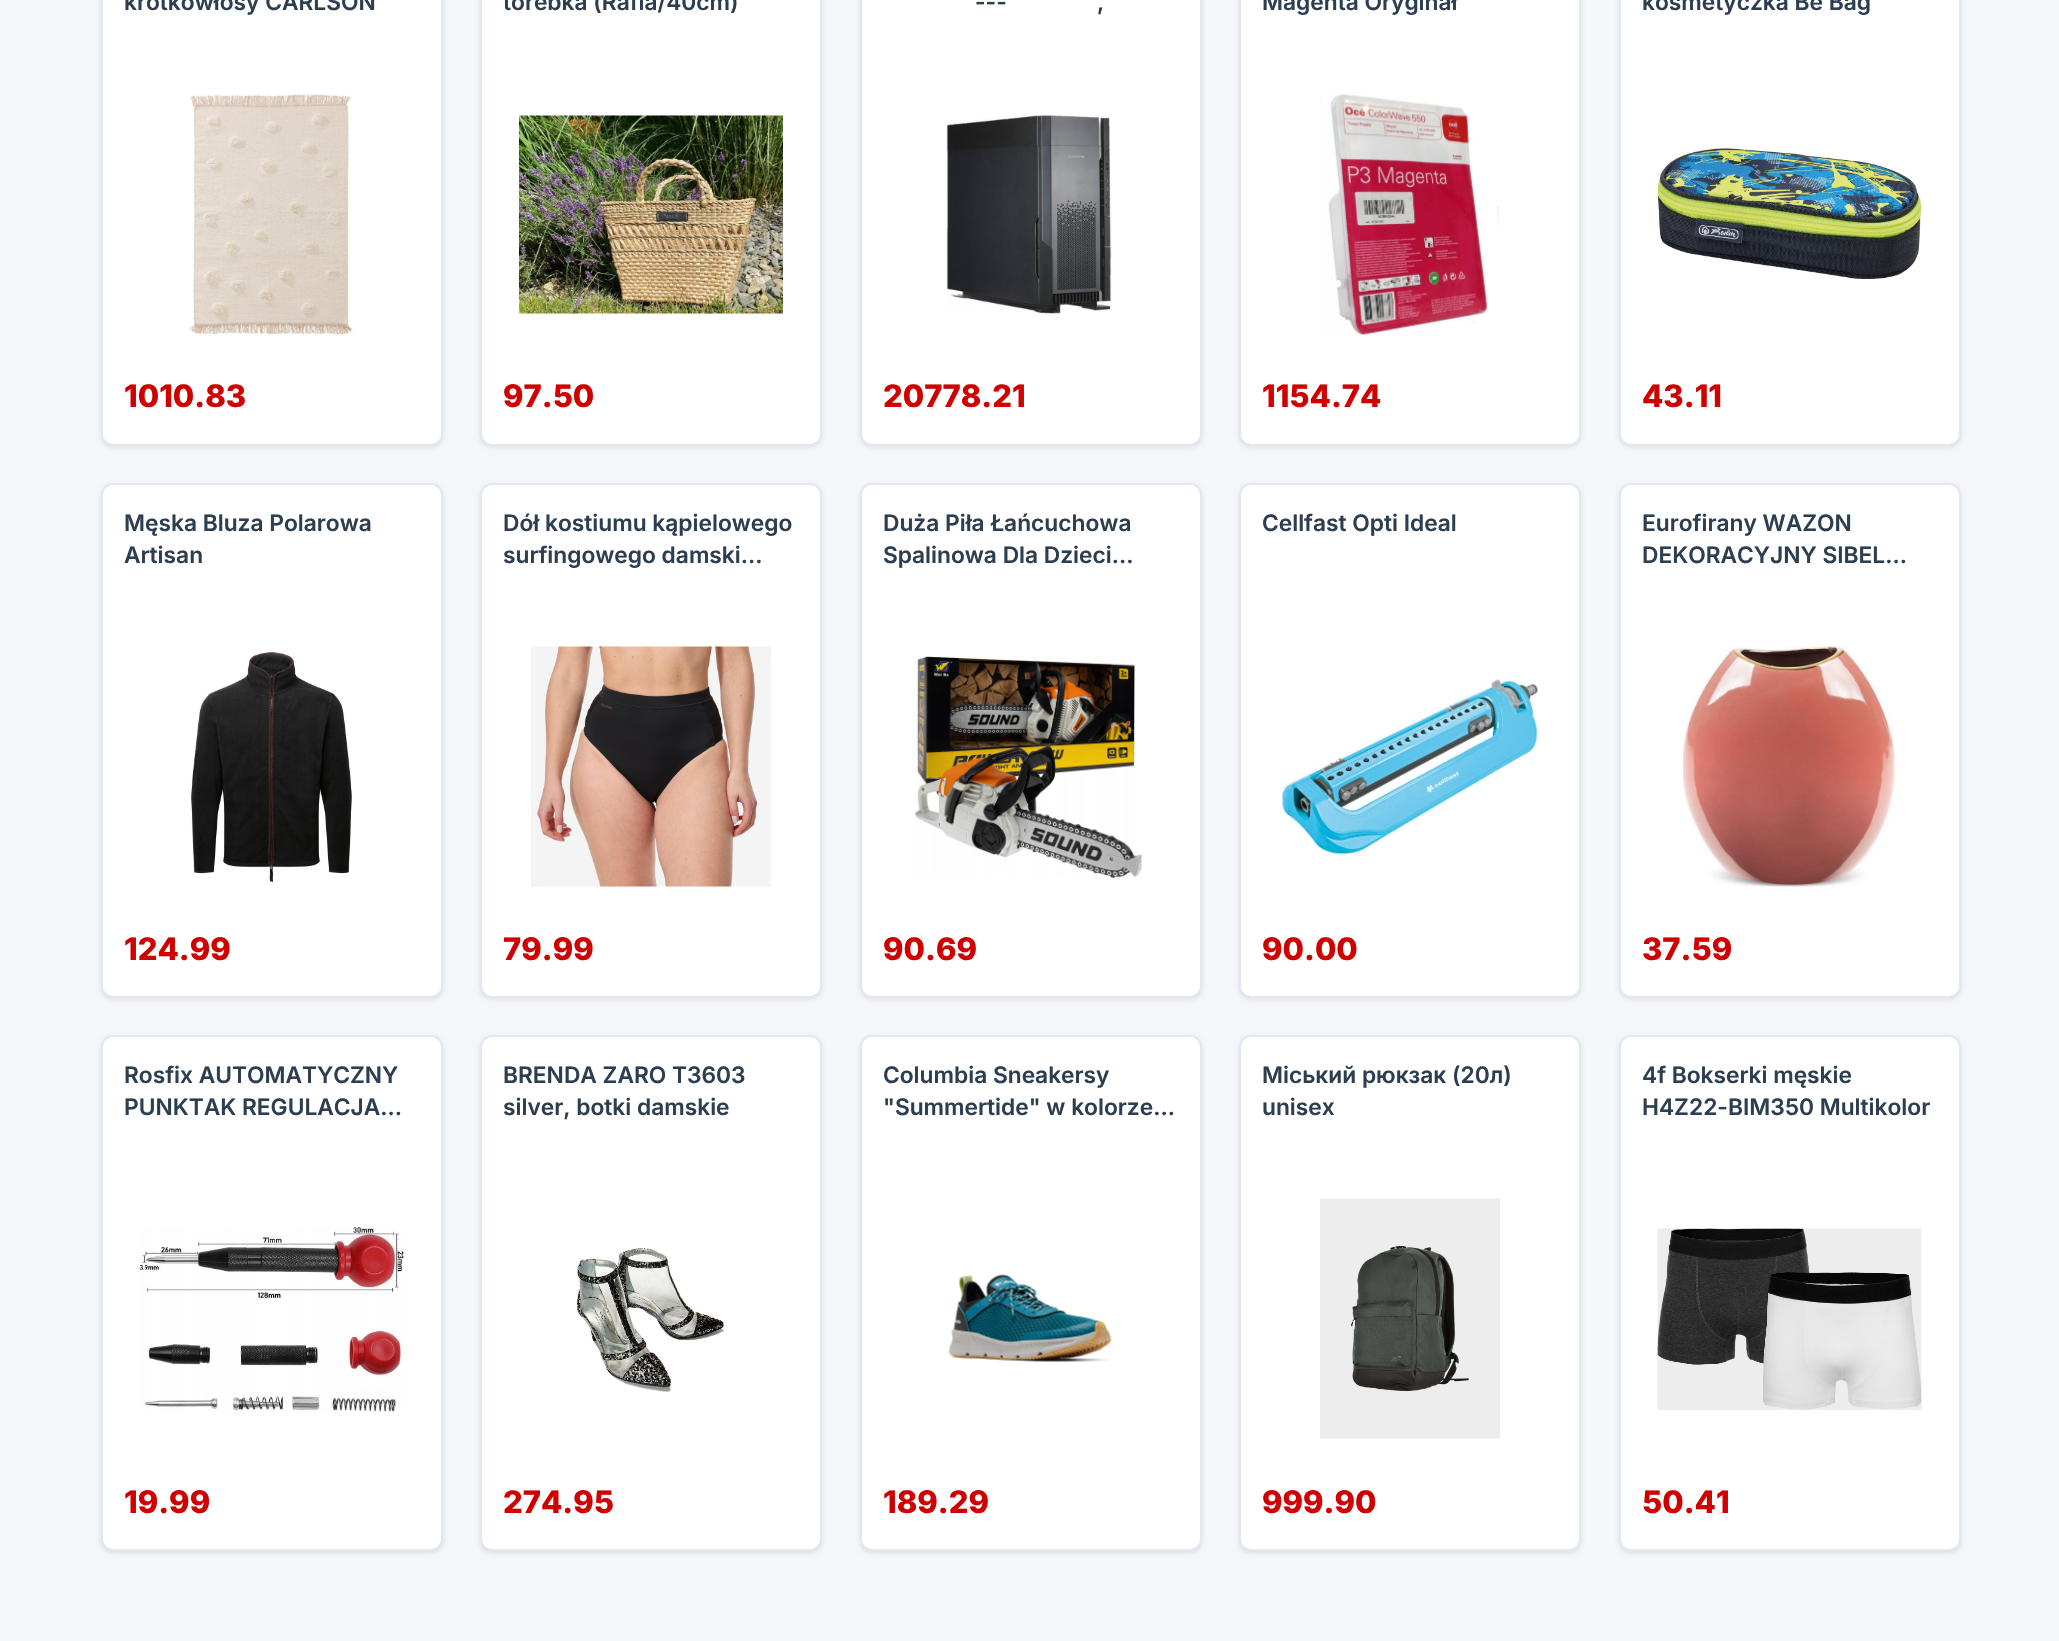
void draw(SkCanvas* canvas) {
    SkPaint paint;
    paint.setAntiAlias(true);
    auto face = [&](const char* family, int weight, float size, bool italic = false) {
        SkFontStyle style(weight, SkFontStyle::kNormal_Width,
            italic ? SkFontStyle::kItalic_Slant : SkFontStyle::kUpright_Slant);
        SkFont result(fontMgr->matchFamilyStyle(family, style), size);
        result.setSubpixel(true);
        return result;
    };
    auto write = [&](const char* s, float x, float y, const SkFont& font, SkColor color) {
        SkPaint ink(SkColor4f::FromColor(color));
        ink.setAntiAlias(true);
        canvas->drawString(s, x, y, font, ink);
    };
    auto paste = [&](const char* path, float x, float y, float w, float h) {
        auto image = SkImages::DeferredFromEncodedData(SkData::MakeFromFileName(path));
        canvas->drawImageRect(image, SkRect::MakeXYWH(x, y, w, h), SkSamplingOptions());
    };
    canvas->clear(SkColorSetRGB(244, 246, 249));
    paint.setColor(SkColorSetARGB(26, 0, 0, 0));
    paint.setMaskFilter(SkMaskFilter::MakeBlur(kNormal_SkBlurStyle, 2));
    canvas->drawRoundRect(SkRect::MakeXYWH(101, -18, 342, 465), 12, 12, paint);
    paint.setMaskFilter(nullptr);
    paint.setColor(SK_ColorWHITE);
    canvas->drawRoundRect(SkRect::MakeXYWH(102, -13, 340, 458), 11, 11, paint);
    paint.setStyle(SkPaint::kStroke_Style);
    paint.setStrokeWidth(2);
    paint.setColor(SkColorSetRGB(226, 232, 240));
    canvas->drawRoundRect(SkRect::MakeXYWH(102, -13, 340, 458), 11, 11, paint);
    auto kFont1 = face("Inter", 600, 22.75f);
    write("krótkowłosy CARLSON", 124, 10, kFont1, SkColorSetRGB(44, 62, 80));
    paste("pic1.png", 189, 94, 164, 241);
    auto kFont2 = face("Inter", 800, 31);
    write("1010.83", 124, 407, kFont2, SkColorSetRGB(208, 0, 0));
    paint.setStyle(SkPaint::kFill_Style);
    paint.setColor(SkColorSetARGB(26, 0, 0, 0));
    paint.setMaskFilter(SkMaskFilter::MakeBlur(kNormal_SkBlurStyle, 2));
    canvas->drawRoundRect(SkRect::MakeXYWH(480, -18, 342, 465), 12, 12, paint);
    paint.setMaskFilter(nullptr);
    paint.setColor(SK_ColorWHITE);
    canvas->drawRoundRect(SkRect::MakeXYWH(481, -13, 340, 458), 11, 11, paint);
    paint.setStyle(SkPaint::kStroke_Style);
    paint.setColor(SkColorSetRGB(226, 232, 240));
    canvas->drawRoundRect(SkRect::MakeXYWH(481, -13, 340, 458), 11, 11, paint);
    write("torebka (Rafia/40cm)", 503, 10, kFont1, SkColorSetRGB(44, 62, 80));
    paste("pic2.png", 519, 115, 264, 199);
    write("97.50", 503, 407, kFont2, SkColorSetRGB(208, 0, 0));
    paint.setStyle(SkPaint::kFill_Style);
    paint.setColor(SkColorSetARGB(26, 0, 0, 0));
    paint.setMaskFilter(SkMaskFilter::MakeBlur(kNormal_SkBlurStyle, 2));
    canvas->drawRoundRect(SkRect::MakeXYWH(860, -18, 342, 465), 12, 12, paint);
    paint.setMaskFilter(nullptr);
    paint.setColor(SK_ColorWHITE);
    canvas->drawRoundRect(SkRect::MakeXYWH(861, -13, 340, 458), 11, 11, paint);
    paint.setStyle(SkPaint::kStroke_Style);
    paint.setColor(SkColorSetRGB(226, 232, 240));
    canvas->drawRoundRect(SkRect::MakeXYWH(861, -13, 340, 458), 11, 11, paint);
    write("---", 975, 10, kFont1, SkColorSetRGB(44, 62, 80));
    write(",", 1097, 10, kFont1, SkColorSetRGB(44, 62, 80));
    paste("pic3.png", 946, 115, 166, 199);
    write("20778.21", 883, 407, kFont2, SkColorSetRGB(208, 0, 0));
    paint.setStyle(SkPaint::kFill_Style);
    paint.setColor(SkColorSetARGB(26, 0, 0, 0));
    paint.setMaskFilter(SkMaskFilter::MakeBlur(kNormal_SkBlurStyle, 2));
    canvas->drawRoundRect(SkRect::MakeXYWH(1239, -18, 342, 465), 12, 12, paint);
    paint.setMaskFilter(nullptr);
    paint.setColor(SK_ColorWHITE);
    canvas->drawRoundRect(SkRect::MakeXYWH(1240, -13, 340, 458), 11, 11, paint);
    paint.setStyle(SkPaint::kStroke_Style);
    paint.setColor(SkColorSetRGB(226, 232, 240));
    canvas->drawRoundRect(SkRect::MakeXYWH(1240, -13, 340, 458), 11, 11, paint);
    write("Magenta Oryginał", 1262, 10, kFont1, SkColorSetRGB(44, 62, 80));
    paste("pic4.png", 1320, 94, 179, 241);
    write("1154.74", 1262, 407, kFont2, SkColorSetRGB(208, 0, 0));
    paint.setStyle(SkPaint::kFill_Style);
    paint.setColor(SkColorSetARGB(26, 0, 0, 0));
    paint.setMaskFilter(SkMaskFilter::MakeBlur(kNormal_SkBlurStyle, 2));
    canvas->drawRoundRect(SkRect::MakeXYWH(1619, -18, 342, 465), 12, 12, paint);
    paint.setMaskFilter(nullptr);
    paint.setColor(SK_ColorWHITE);
    canvas->drawRoundRect(SkRect::MakeXYWH(1620, -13, 340, 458), 11, 11, paint);
    paint.setStyle(SkPaint::kStroke_Style);
    paint.setColor(SkColorSetRGB(226, 232, 240));
    canvas->drawRoundRect(SkRect::MakeXYWH(1620, -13, 340, 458), 11, 11, paint);
    write("kosmetyczka Be Bag", 1642, 10, kFont1, SkColorSetRGB(44, 62, 80));
    paste("pic5.png", 1657, 148, 265, 131);
    write("43.11", 1642, 407, kFont2, SkColorSetRGB(208, 0, 0));
    paint.setStyle(SkPaint::kFill_Style);
    paint.setColor(SkColorSetARGB(26, 0, 0, 0));
    paint.setMaskFilter(SkMaskFilter::MakeBlur(kNormal_SkBlurStyle, 2));
    canvas->drawRoundRect(SkRect::MakeXYWH(101, 485, 342, 514), 12, 12, paint);
    paint.setMaskFilter(nullptr);
    paint.setColor(SK_ColorWHITE);
    canvas->drawRoundRect(SkRect::MakeXYWH(102, 484, 340, 513), 11, 11, paint);
    paint.setStyle(SkPaint::kStroke_Style);
    paint.setColor(SkColorSetRGB(226, 232, 240));
    canvas->drawRoundRect(SkRect::MakeXYWH(102, 484, 340, 513), 11, 11, paint);
    write("Męska Bluza Polarowa", 124, 531, kFont1, SkColorSetRGB(44, 62, 80));
    write("Artisan", 124, 563, kFont1, SkColorSetRGB(44, 62, 80));
    paste("pic6.png", 191, 652, 161, 230);
    write("124.99", 124, 960, kFont2, SkColorSetRGB(208, 0, 0));
    paint.setStyle(SkPaint::kFill_Style);
    paint.setColor(SkColorSetARGB(26, 0, 0, 0));
    paint.setMaskFilter(SkMaskFilter::MakeBlur(kNormal_SkBlurStyle, 2));
    canvas->drawRoundRect(SkRect::MakeXYWH(480, 485, 342, 514), 12, 12, paint);
    paint.setMaskFilter(nullptr);
    paint.setColor(SK_ColorWHITE);
    canvas->drawRoundRect(SkRect::MakeXYWH(481, 484, 340, 513), 11, 11, paint);
    paint.setStyle(SkPaint::kStroke_Style);
    paint.setColor(SkColorSetRGB(226, 232, 240));
    canvas->drawRoundRect(SkRect::MakeXYWH(481, 484, 340, 513), 11, 11, paint);
    write("Dół kostiumu kąpielowego", 503, 531, kFont1, SkColorSetRGB(44, 62, 80));
    write("surfingowego damski…", 503, 563, kFont1, SkColorSetRGB(44, 62, 80));
    paste("pic7.png", 531, 646, 240, 241);
    write("79.99", 503, 960, kFont2, SkColorSetRGB(208, 0, 0));
    paint.setStyle(SkPaint::kFill_Style);
    paint.setColor(SkColorSetARGB(26, 0, 0, 0));
    paint.setMaskFilter(SkMaskFilter::MakeBlur(kNormal_SkBlurStyle, 2));
    canvas->drawRoundRect(SkRect::MakeXYWH(860, 485, 342, 514), 12, 12, paint);
    paint.setMaskFilter(nullptr);
    paint.setColor(SK_ColorWHITE);
    canvas->drawRoundRect(SkRect::MakeXYWH(861, 484, 340, 513), 11, 11, paint);
    paint.setStyle(SkPaint::kStroke_Style);
    paint.setColor(SkColorSetRGB(226, 232, 240));
    canvas->drawRoundRect(SkRect::MakeXYWH(861, 484, 340, 513), 11, 11, paint);
    write("Duża Piła Łańcuchowa", 883, 531, kFont1, SkColorSetRGB(44, 62, 80));
    write("Spalinowa Dla Dzieci…", 883, 563, kFont1, SkColorSetRGB(44, 62, 80));
    paste("pic8.png", 914, 656, 228, 222);
    write("90.69", 883, 960, kFont2, SkColorSetRGB(208, 0, 0));
    paint.setStyle(SkPaint::kFill_Style);
    paint.setColor(SkColorSetARGB(26, 0, 0, 0));
    paint.setMaskFilter(SkMaskFilter::MakeBlur(kNormal_SkBlurStyle, 2));
    canvas->drawRoundRect(SkRect::MakeXYWH(1239, 485, 342, 514), 12, 12, paint);
    paint.setMaskFilter(nullptr);
    paint.setColor(SK_ColorWHITE);
    canvas->drawRoundRect(SkRect::MakeXYWH(1240, 484, 340, 513), 11, 11, paint);
    paint.setStyle(SkPaint::kStroke_Style);
    paint.setColor(SkColorSetRGB(226, 232, 240));
    canvas->drawRoundRect(SkRect::MakeXYWH(1240, 484, 340, 513), 11, 11, paint);
    write("Cellfast Opti Ideal", 1262, 531, kFont1, SkColorSetRGB(44, 62, 80));
    paste("pic9.png", 1281, 679, 258, 176);
    write("90.00", 1262, 960, kFont2, SkColorSetRGB(208, 0, 0));
    paint.setStyle(SkPaint::kFill_Style);
    paint.setColor(SkColorSetARGB(26, 0, 0, 0));
    paint.setMaskFilter(SkMaskFilter::MakeBlur(kNormal_SkBlurStyle, 2));
    canvas->drawRoundRect(SkRect::MakeXYWH(1619, 485, 342, 514), 12, 12, paint);
    paint.setMaskFilter(nullptr);
    paint.setColor(SK_ColorWHITE);
    canvas->drawRoundRect(SkRect::MakeXYWH(1620, 484, 340, 513), 11, 11, paint);
    paint.setStyle(SkPaint::kStroke_Style);
    paint.setColor(SkColorSetRGB(226, 232, 240));
    canvas->drawRoundRect(SkRect::MakeXYWH(1620, 484, 340, 513), 11, 11, paint);
    write("Eurofirany WAZON", 1642, 531, kFont1, SkColorSetRGB(44, 62, 80));
    write("DEKORACYJNY SIBEL…", 1642, 563, kFont1, SkColorSetRGB(44, 62, 80));
    paste("pic10.png", 1683, 646, 212, 241);
    write("37.59", 1642, 960, kFont2, SkColorSetRGB(208, 0, 0));
    paint.setStyle(SkPaint::kFill_Style);
    paint.setColor(SkColorSetARGB(26, 0, 0, 0));
    paint.setMaskFilter(SkMaskFilter::MakeBlur(kNormal_SkBlurStyle, 2));
    canvas->drawRoundRect(SkRect::MakeXYWH(101, 1037, 342, 516), 12, 12, paint);
    paint.setMaskFilter(nullptr);
    paint.setColor(SK_ColorWHITE);
    canvas->drawRoundRect(SkRect::MakeXYWH(102, 1036, 340, 514), 11, 11, paint);
    paint.setStyle(SkPaint::kStroke_Style);
    paint.setColor(SkColorSetRGB(226, 232, 240));
    canvas->drawRoundRect(SkRect::MakeXYWH(102, 1036, 340, 514), 11, 11, paint);
    write("Rosfix AUTOMATYCZNY", 124, 1083, kFont1, SkColorSetRGB(44, 62, 80));
    write("PUNKTAK REGULACJA…", 124, 1115, kFont1, SkColorSetRGB(44, 62, 80));
    paste("pic11.png", 139, 1227, 265, 185);
    write("19.99", 124, 1513, kFont2, SkColorSetRGB(208, 0, 0));
    paint.setStyle(SkPaint::kFill_Style);
    paint.setColor(SkColorSetARGB(26, 0, 0, 0));
    paint.setMaskFilter(SkMaskFilter::MakeBlur(kNormal_SkBlurStyle, 2));
    canvas->drawRoundRect(SkRect::MakeXYWH(480, 1037, 342, 516), 12, 12, paint);
    paint.setMaskFilter(nullptr);
    paint.setColor(SK_ColorWHITE);
    canvas->drawRoundRect(SkRect::MakeXYWH(481, 1036, 340, 514), 11, 11, paint);
    paint.setStyle(SkPaint::kStroke_Style);
    paint.setColor(SkColorSetRGB(226, 232, 240));
    canvas->drawRoundRect(SkRect::MakeXYWH(481, 1036, 340, 514), 11, 11, paint);
    write("BRENDA ZARO T3603", 503, 1083, kFont1, SkColorSetRGB(44, 62, 80));
    write("silver, botki damskie", 503, 1115, kFont1, SkColorSetRGB(44, 62, 80));
    paste("pic12.png", 574, 1248, 150, 144);
    write("274.95", 503, 1513, kFont2, SkColorSetRGB(208, 0, 0));
    paint.setStyle(SkPaint::kFill_Style);
    paint.setColor(SkColorSetARGB(26, 0, 0, 0));
    paint.setMaskFilter(SkMaskFilter::MakeBlur(kNormal_SkBlurStyle, 2));
    canvas->drawRoundRect(SkRect::MakeXYWH(860, 1037, 342, 516), 12, 12, paint);
    paint.setMaskFilter(nullptr);
    paint.setColor(SK_ColorWHITE);
    canvas->drawRoundRect(SkRect::MakeXYWH(861, 1036, 340, 514), 11, 11, paint);
    paint.setStyle(SkPaint::kStroke_Style);
    paint.setColor(SkColorSetRGB(226, 232, 240));
    canvas->drawRoundRect(SkRect::MakeXYWH(861, 1036, 340, 514), 11, 11, paint);
    write("Columbia Sneakersy", 883, 1083, kFont1, SkColorSetRGB(44, 62, 80));
    write("\"Summertide\" w kolorze…", 883, 1115, kFont1, SkColorSetRGB(44, 62, 80));
    paste("pic13.png", 948, 1274, 164, 88);
    write("189.29", 883, 1513, kFont2, SkColorSetRGB(208, 0, 0));
    paint.setStyle(SkPaint::kFill_Style);
    paint.setColor(SkColorSetARGB(26, 0, 0, 0));
    paint.setMaskFilter(SkMaskFilter::MakeBlur(kNormal_SkBlurStyle, 2));
    canvas->drawRoundRect(SkRect::MakeXYWH(1239, 1037, 342, 516), 12, 12, paint);
    paint.setMaskFilter(nullptr);
    paint.setColor(SK_ColorWHITE);
    canvas->drawRoundRect(SkRect::MakeXYWH(1240, 1036, 340, 514), 11, 11, paint);
    paint.setStyle(SkPaint::kStroke_Style);
    paint.setColor(SkColorSetRGB(226, 232, 240));
    canvas->drawRoundRect(SkRect::MakeXYWH(1240, 1036, 340, 514), 11, 11, paint);
    write("Міський рюкзак (20л)", 1262, 1083, kFont1, SkColorSetRGB(44, 62, 80));
    write("unisex", 1262, 1115, kFont1, SkColorSetRGB(44, 62, 80));
    paste("pic14.png", 1320, 1198, 180, 241);
    write("999.90", 1262, 1513, kFont2, SkColorSetRGB(208, 0, 0));
    paint.setStyle(SkPaint::kFill_Style);
    paint.setColor(SkColorSetARGB(26, 0, 0, 0));
    paint.setMaskFilter(SkMaskFilter::MakeBlur(kNormal_SkBlurStyle, 2));
    canvas->drawRoundRect(SkRect::MakeXYWH(1619, 1037, 342, 516), 12, 12, paint);
    paint.setMaskFilter(nullptr);
    paint.setColor(SK_ColorWHITE);
    canvas->drawRoundRect(SkRect::MakeXYWH(1620, 1036, 340, 514), 11, 11, paint);
    paint.setStyle(SkPaint::kStroke_Style);
    paint.setColor(SkColorSetRGB(226, 232, 240));
    canvas->drawRoundRect(SkRect::MakeXYWH(1620, 1036, 340, 514), 11, 11, paint);
    write("4f Bokserki męskie", 1642, 1083, kFont1, SkColorSetRGB(44, 62, 80));
    write("H4Z22-BIM350 Multikolor", 1642, 1115, kFont1, SkColorSetRGB(44, 62, 80));
    paste("pic15.png", 1657, 1228, 265, 182);
    write("50.41", 1642, 1513, kFont2, SkColorSetRGB(208, 0, 0));
}
